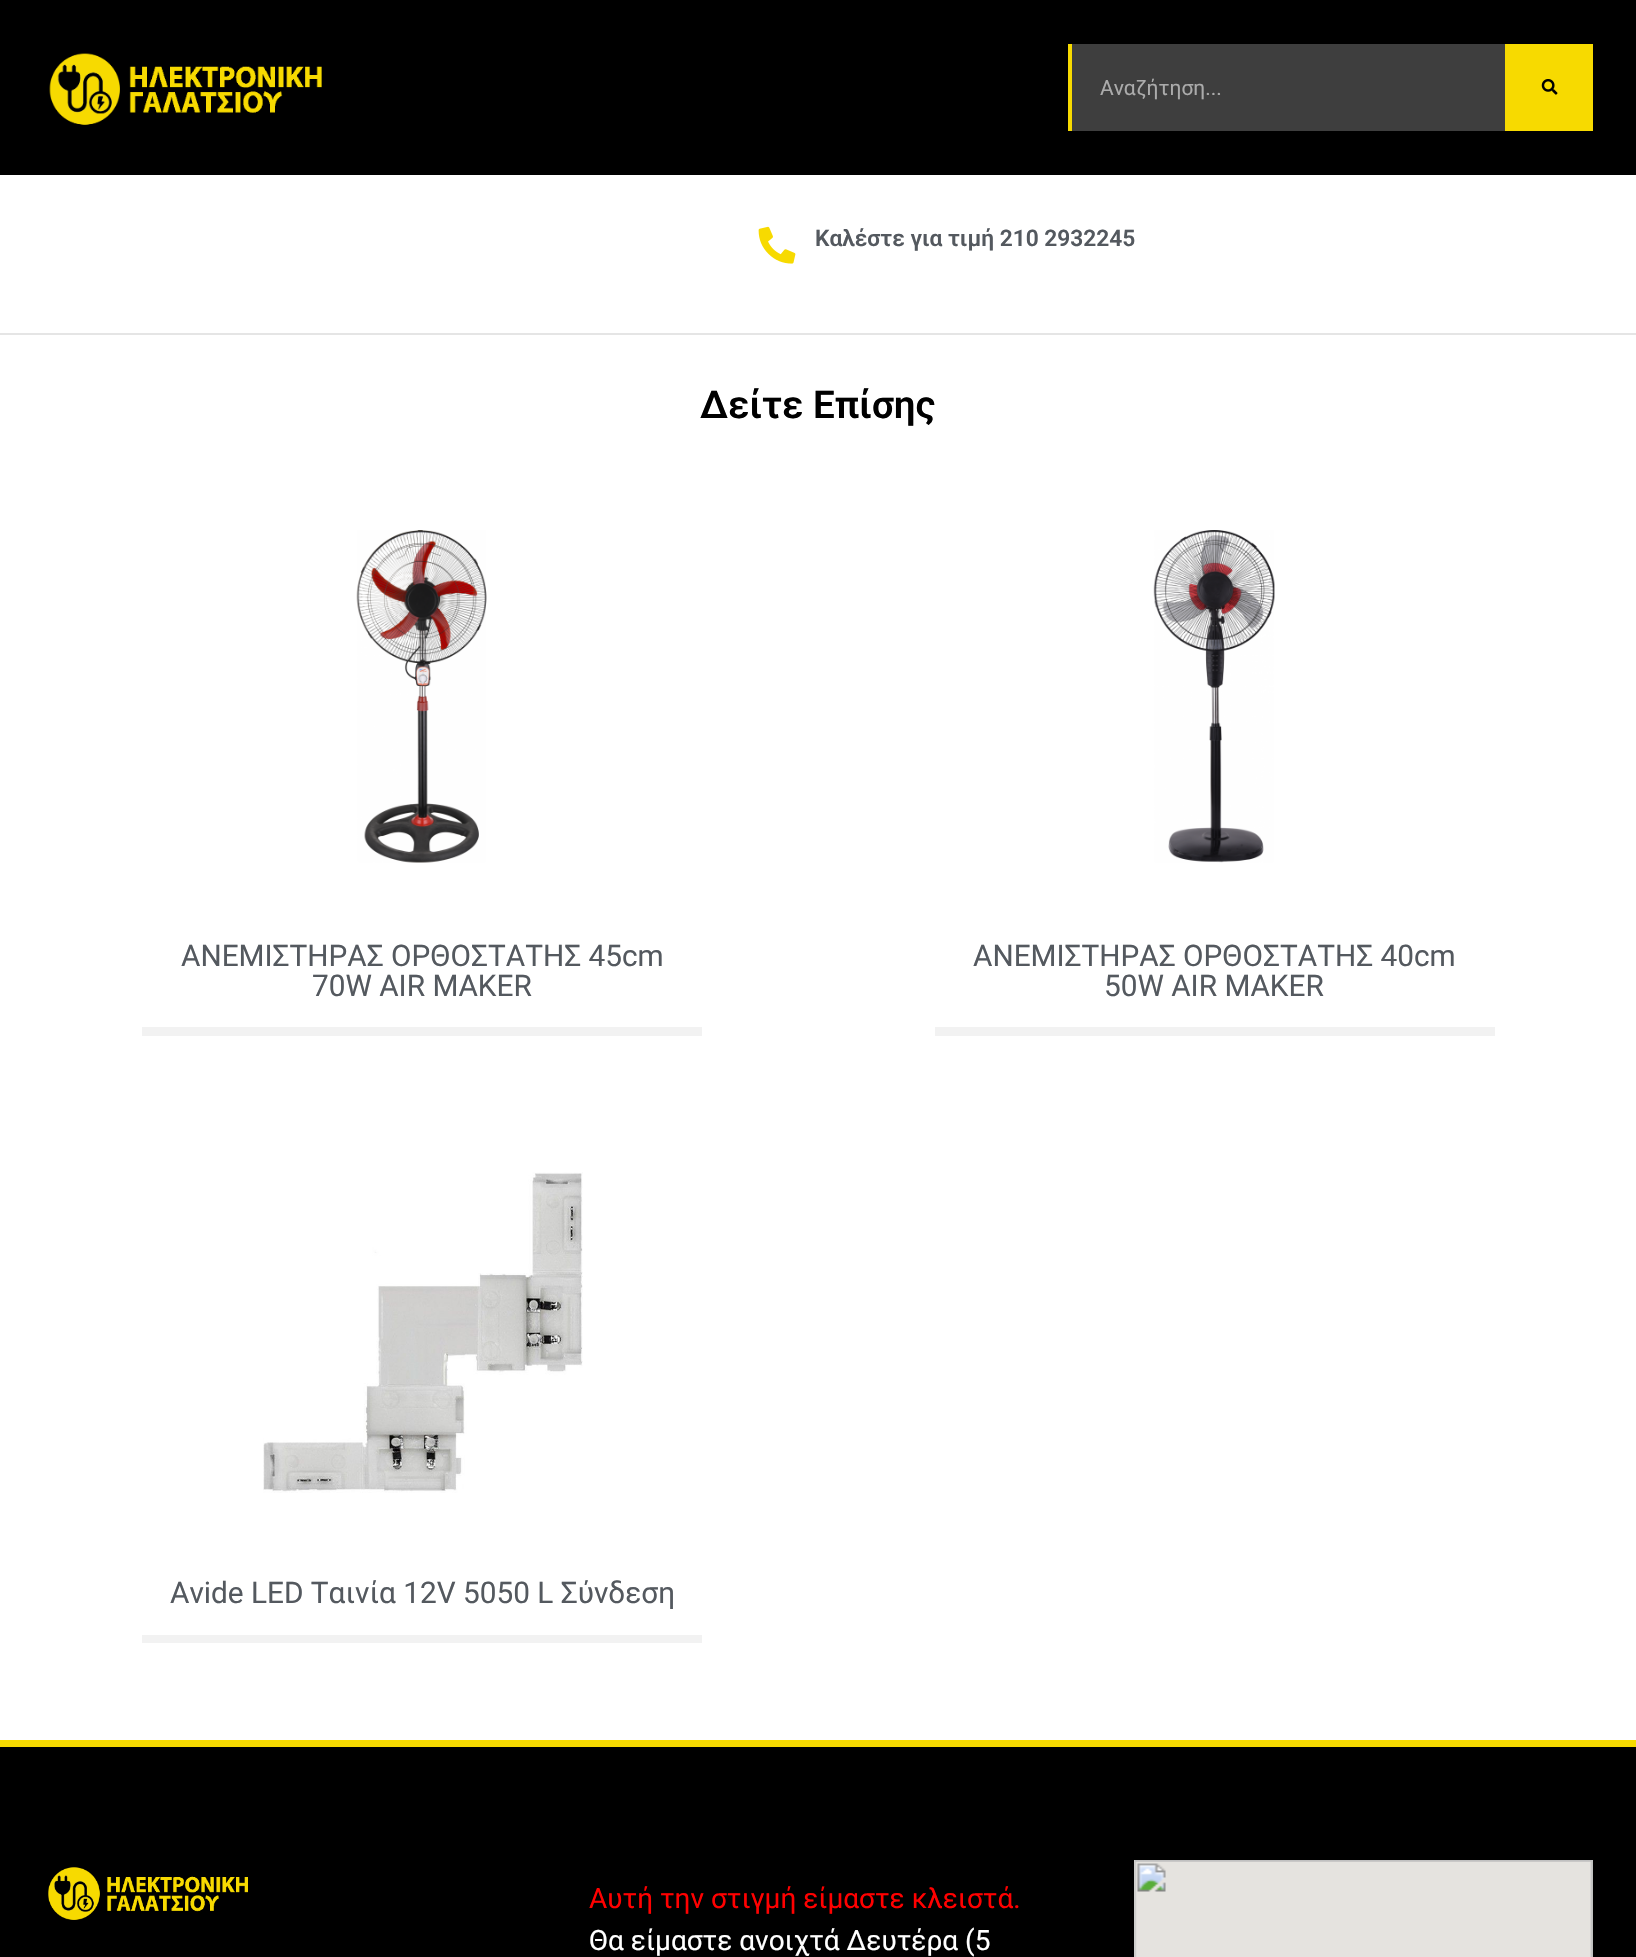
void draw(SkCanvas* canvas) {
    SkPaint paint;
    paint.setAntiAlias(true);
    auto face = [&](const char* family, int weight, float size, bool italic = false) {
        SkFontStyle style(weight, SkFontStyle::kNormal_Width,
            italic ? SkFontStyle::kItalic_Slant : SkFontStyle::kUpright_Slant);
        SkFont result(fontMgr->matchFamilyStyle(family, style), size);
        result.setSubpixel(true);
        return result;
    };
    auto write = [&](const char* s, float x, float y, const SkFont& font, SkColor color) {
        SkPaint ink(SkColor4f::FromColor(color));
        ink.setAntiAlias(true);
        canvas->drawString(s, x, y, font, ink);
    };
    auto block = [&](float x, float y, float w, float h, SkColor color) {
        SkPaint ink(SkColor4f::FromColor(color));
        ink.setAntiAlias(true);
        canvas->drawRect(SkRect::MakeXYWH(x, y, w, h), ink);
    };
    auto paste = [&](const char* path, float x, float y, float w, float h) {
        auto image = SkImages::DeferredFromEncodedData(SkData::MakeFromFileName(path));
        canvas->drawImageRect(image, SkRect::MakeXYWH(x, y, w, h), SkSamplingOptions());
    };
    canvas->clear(SK_ColorWHITE);
    block(0, 0, 1636, 175, SK_ColorBLACK);
    paste("pic1.png", 49, 53, 273, 72);
    block(1072, 44, 433, 87, SkColorSetRGB(62, 62, 62));
    block(1068, 44, 4, 87, SkColorSetRGB(247, 218, 0));
    auto kFont1 = face("Roboto", 400, 21);
    write("Αναζήτηση...", 1100, 95, kFont1, SkColorSetRGB(171, 171, 171));
    block(1505, 44, 88, 87, SkColorSetRGB(247, 218, 0));
    paste("pic2.png", 1541, 79, 17, 16);
    paste("pic3.png", 758, 226, 38, 38);
    auto kFont2 = face("Roboto", 600, 22.75f);
    write("Καλέστε για τιμή 210 2932245", 815, 246, kFont2, SkColorSetRGB(84, 89, 95));
    block(0, 333, 1636, 2, SkColorSetRGB(229, 229, 229));
    auto kFont3 = face("Roboto", 600, 38.5f);
    write("Δείτε Επίσης", 700, 418, kFont3, SK_ColorBLACK);
    block(142, 1027, 560, 9, SkColorSetRGB(242, 242, 242));
    paste("pic4.png", 356, 530, 131, 333);
    auto kFont4 = face("Roboto", 400, 29.75f);
    write("ΑΝΕΜΙΣΤΗΡΑΣ ΟΡΘΟΣΤΑΤΗΣ 45cm", 181, 966, kFont4, SkColorSetRGB(84, 89, 95));
    write("70W AIR MAKER", 312, 996, kFont4, SkColorSetRGB(84, 89, 95));
    block(935, 1027, 560, 9, SkColorSetRGB(242, 242, 242));
    paste("pic5.png", 1153, 530, 122, 333);
    write("ΑΝΕΜΙΣΤΗΡΑΣ ΟΡΘΟΣΤΑΤΗΣ 40cm", 973, 966, kFont4, SkColorSetRGB(84, 89, 95));
    write("50W AIR MAKER", 1104, 996, kFont4, SkColorSetRGB(84, 89, 95));
    block(142, 1635, 560, 8, SkColorSetRGB(242, 242, 242));
    paste("pic6.png", 263, 1172, 320, 321);
    write("Avide LED Ταινία 12V 5050 L Σύνδεση", 170, 1603, kFont4, SkColorSetRGB(84, 89, 95));
    block(0, 1747, 1636, 210, SK_ColorBLACK);
    block(0, 1740, 1636, 7, SkColorSetRGB(247, 218, 0));
    paste("pic7.png", 48, 1867, 200, 53);
    auto kFont5 = face("Roboto", 400, 28);
    write("Αυτή την στιγμή είμαστε κλειστά.", 589, 1908, kFont5, SkColorSetRGB(255, 0, 0));
    write("Θα είμαστε ανοιχτά Δευτέρα (5", 589, 1950, kFont5, SK_ColorWHITE);
    paste("pic8.png", 1134, 1860, 459, 97);
}
